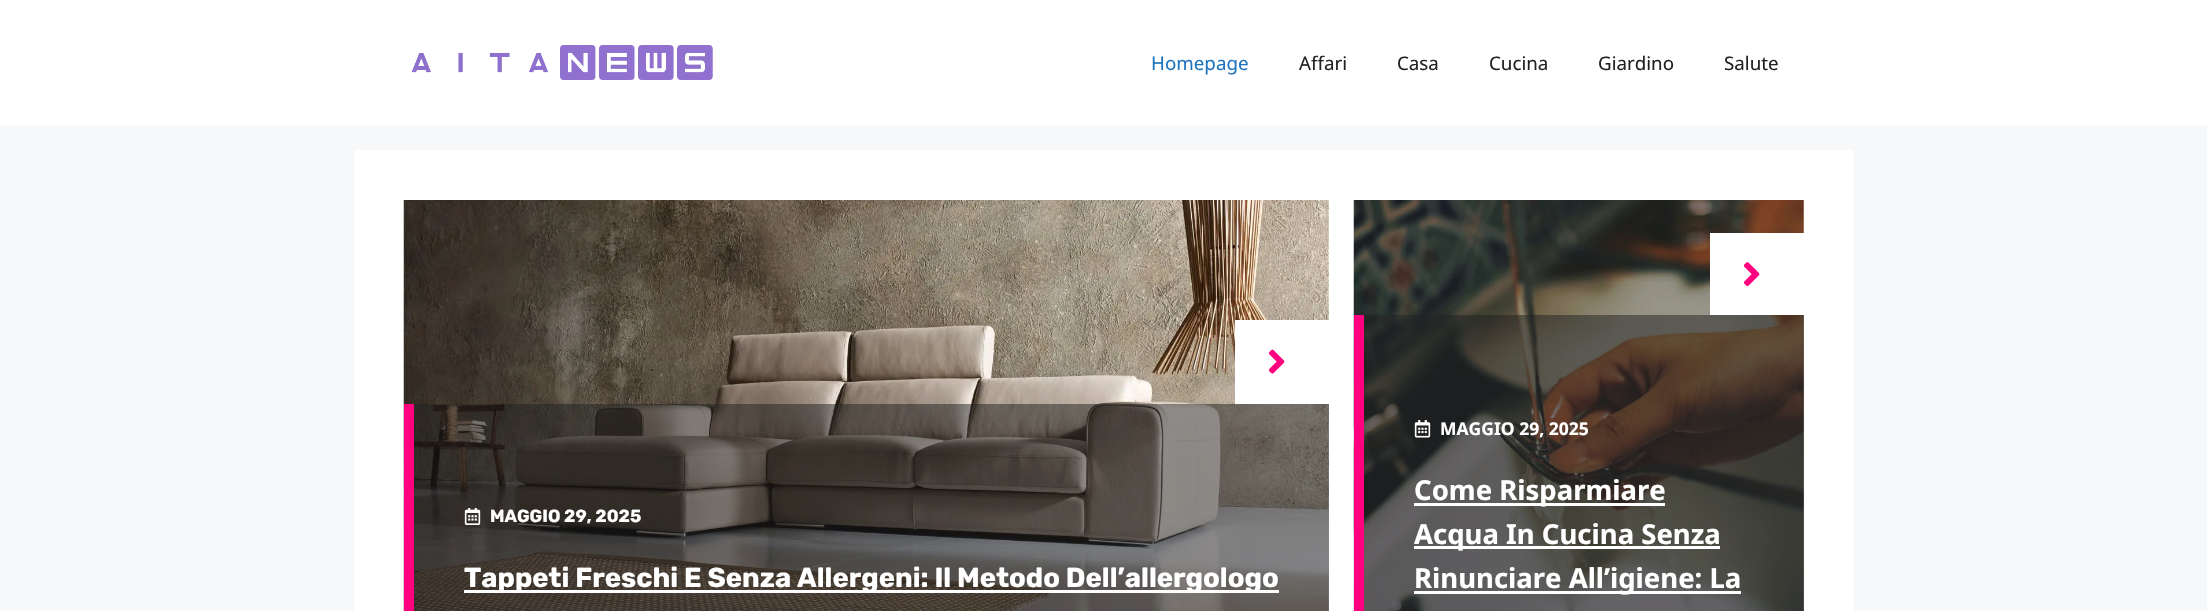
void draw(SkCanvas* canvas) {
    SkPaint paint;
    paint.setAntiAlias(true);
    auto face = [&](const char* family, int weight, float size, bool italic = false) {
        SkFontStyle style(weight, SkFontStyle::kNormal_Width,
            italic ? SkFontStyle::kItalic_Slant : SkFontStyle::kUpright_Slant);
        SkFont result(fontMgr->matchFamilyStyle(family, style), size);
        result.setSubpixel(true);
        return result;
    };
    auto write = [&](const char* s, float x, float y, const SkFont& font, SkColor color) {
        SkPaint ink(SkColor4f::FromColor(color));
        ink.setAntiAlias(true);
        canvas->drawString(s, x, y, font, ink);
    };
    auto block = [&](float x, float y, float w, float h, SkColor color) {
        SkPaint ink(SkColor4f::FromColor(color));
        ink.setAntiAlias(true);
        canvas->drawRect(SkRect::MakeXYWH(x, y, w, h), ink);
    };
    auto paste = [&](const char* path, float x, float y, float w, float h) {
        auto image = SkImages::DeferredFromEncodedData(SkData::MakeFromFileName(path));
        canvas->drawImageRect(image, SkRect::MakeXYWH(x, y, w, h), SkSamplingOptions());
    };
    canvas->clear(SkColorSetRGB(247, 248, 249));
    block(0, 0, 2207, 125, SK_ColorWHITE);
    paste("pic1.png", 411, 45, 302, 35);
    auto kFont1 = face("Noto Sans", 400, 18.75f);
    write("Homepage", 1151, 70, kFont1, SkColorSetRGB(30, 115, 190));
    write("Affari", 1299, 70, kFont1, SkColorSetRGB(34, 34, 34));
    write("Casa", 1397, 70, kFont1, SkColorSetRGB(34, 34, 34));
    write("Cucina", 1489, 70, kFont1, SkColorSetRGB(34, 34, 34));
    write("Giardino", 1598, 70, kFont1, SkColorSetRGB(34, 34, 34));
    write("Salute", 1724, 70, kFont1, SkColorSetRGB(34, 34, 34));
    block(354, 150, 1500, 461, SK_ColorWHITE);
    paste("pic2.png", 403, 200, 926, 411);
    block(1235, 320, 94, 84, SK_ColorWHITE);
    paste("pic3.png", 1268, 349, 17, 25);
    block(414, 404, 915, 207, SkColorSetARGB(130, 33, 33, 33));
    block(404, 404, 10, 207, SkColorSetRGB(255, 0, 126));
    paste("pic4.png", 464, 508, 17, 17);
    auto kFont2 = face("Rubik", 700, 17.5f);
    write("MAGGIO 29, 2025", 490, 522, kFont2, SK_ColorWHITE);
    block(464, 590, 815, 3, SK_ColorWHITE);
    auto kFont3 = face("Rubik", 700, 27.5f);
    write("Tappeti Freschi E Senza Allergeni: Il Metodo Dell’allergologo", 464, 587, kFont3, SK_ColorWHITE);
    paste("pic5.png", 1353, 200, 451, 411);
    block(1710, 233, 94, 82, SK_ColorWHITE);
    paste("pic6.png", 1743, 262, 17, 25);
    block(1364, 315, 440, 296, SkColorSetARGB(130, 33, 33, 33));
    block(1354, 315, 10, 296, SkColorSetRGB(255, 0, 126));
    paste("pic7.png", 1414, 420, 17, 18);
    auto kFont4 = face("Noto Sans", 700, 17.5f);
    write("MAGGIO 29, 2025", 1440, 435, kFont4, SK_ColorWHITE);
    block(1414, 503, 251, 3, SK_ColorWHITE);
    auto kFont5 = face("Noto Sans", 700, 27.5f);
    write("Come Risparmiare", 1414, 500, kFont5, SK_ColorWHITE);
    block(1414, 546, 306, 3, SK_ColorWHITE);
    write("Acqua In Cucina Senza", 1414, 544, kFont5, SK_ColorWHITE);
    block(1414, 591, 327, 3, SK_ColorWHITE);
    write("Rinunciare All’igiene: La", 1414, 588, kFont5, SK_ColorWHITE);
}
